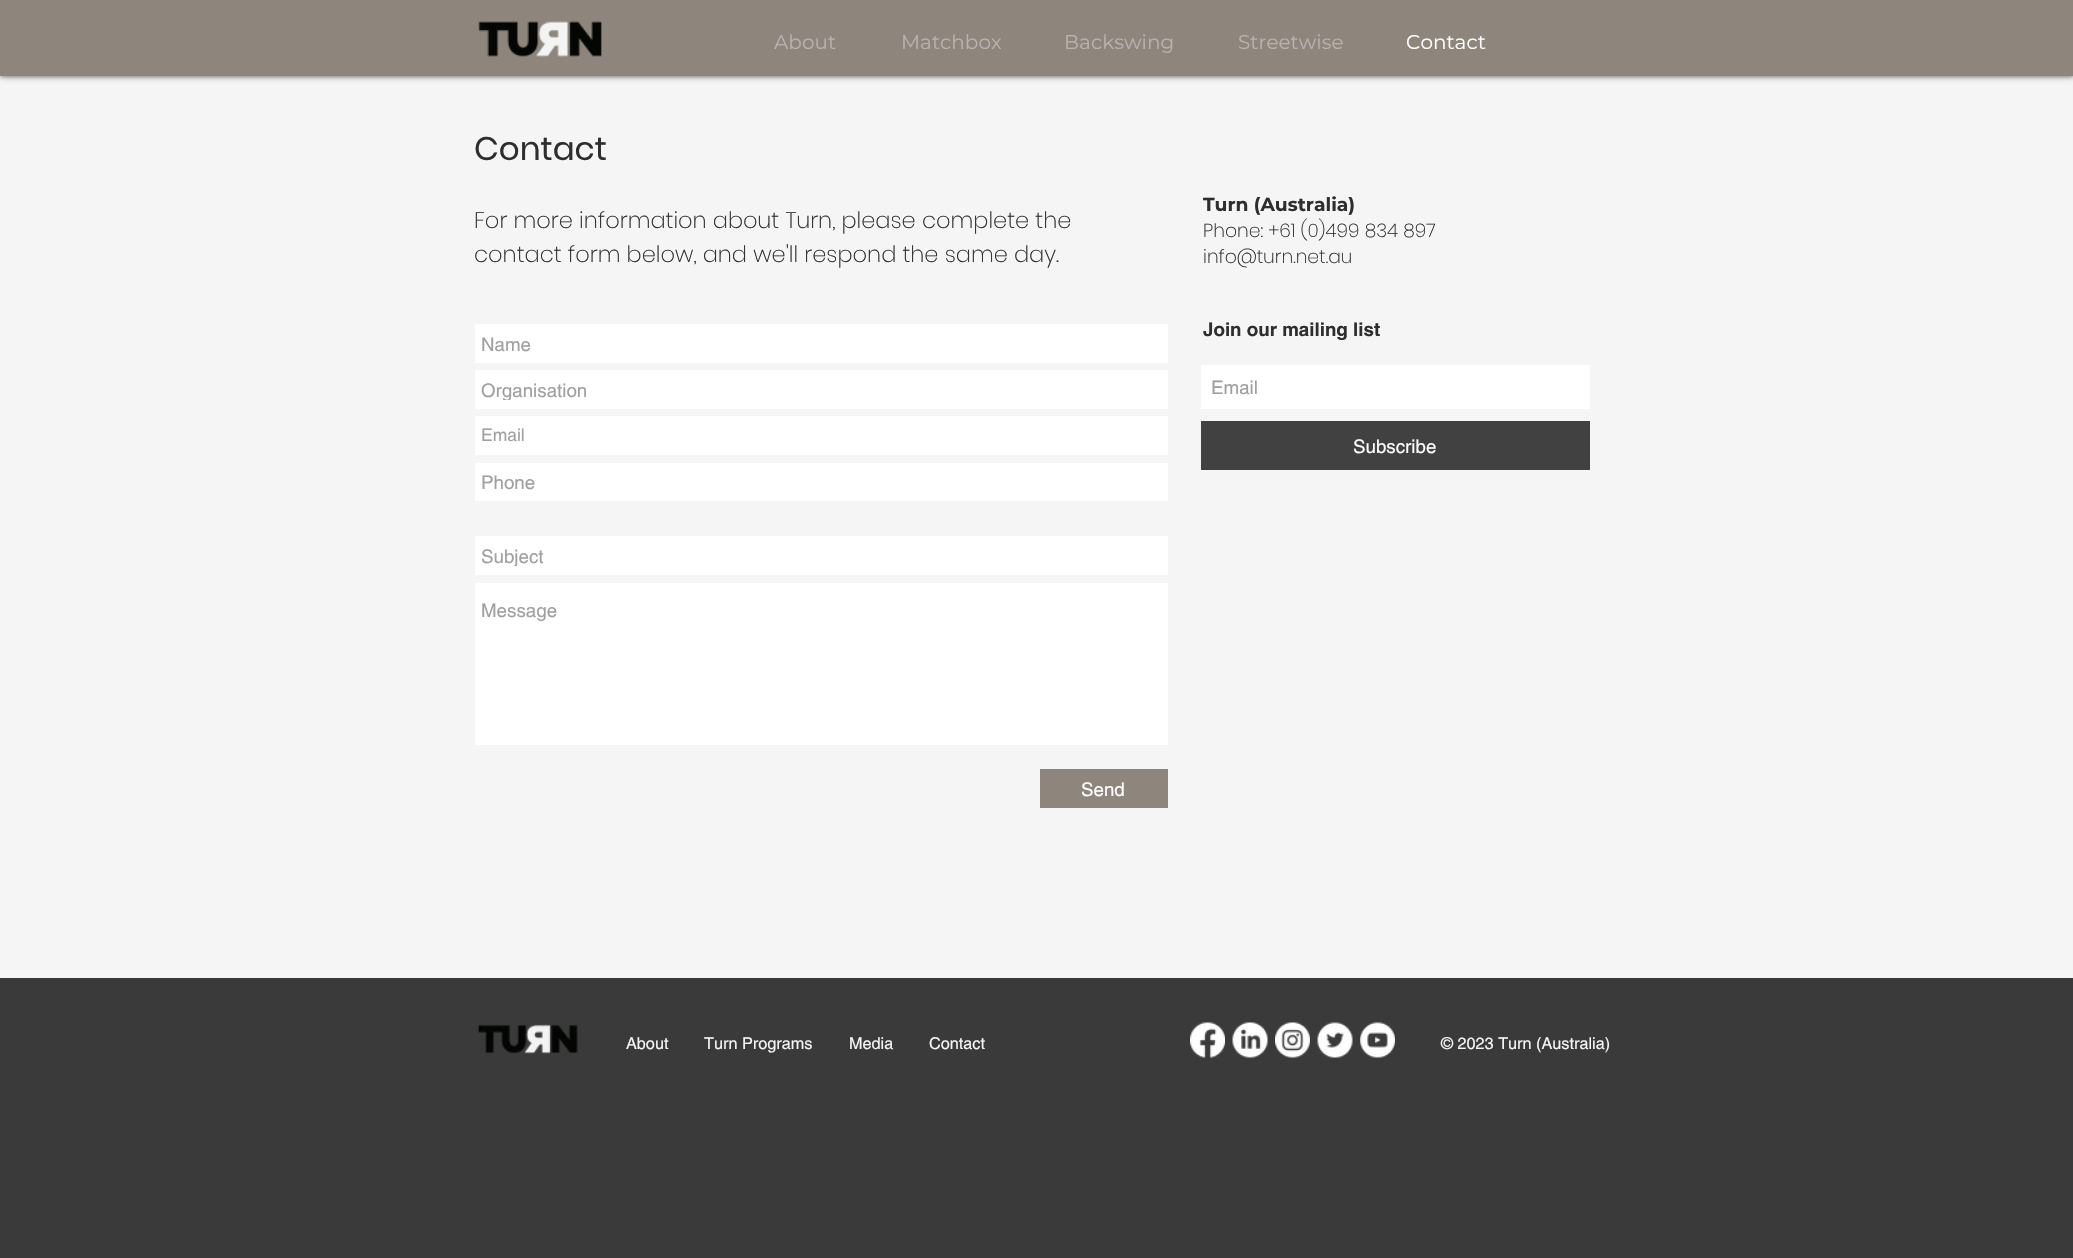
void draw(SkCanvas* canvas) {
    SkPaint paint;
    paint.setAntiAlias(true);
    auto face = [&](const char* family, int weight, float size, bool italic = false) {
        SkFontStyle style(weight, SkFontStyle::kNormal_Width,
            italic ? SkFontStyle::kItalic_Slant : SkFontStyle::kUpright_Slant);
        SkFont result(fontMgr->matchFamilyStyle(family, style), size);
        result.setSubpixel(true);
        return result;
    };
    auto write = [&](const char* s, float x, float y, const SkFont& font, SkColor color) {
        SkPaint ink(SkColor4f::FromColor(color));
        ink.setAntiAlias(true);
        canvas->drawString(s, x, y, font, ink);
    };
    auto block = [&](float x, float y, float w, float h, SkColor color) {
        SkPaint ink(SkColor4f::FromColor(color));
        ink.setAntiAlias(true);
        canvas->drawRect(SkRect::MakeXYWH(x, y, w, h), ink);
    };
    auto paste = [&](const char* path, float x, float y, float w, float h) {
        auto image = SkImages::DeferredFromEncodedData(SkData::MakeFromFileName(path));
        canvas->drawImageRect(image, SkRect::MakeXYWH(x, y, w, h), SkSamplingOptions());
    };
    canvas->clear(SkColorSetRGB(245, 245, 245));
    paint.setColor(SkColorSetARGB(179, 0, 0, 0));
    paint.setMaskFilter(SkMaskFilter::MakeBlur(kNormal_SkBlurStyle, 3));
    canvas->drawRect(SkRect::MakeXYWH(0, 0, 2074, 76), paint);
    paint.setMaskFilter(nullptr);
    block(0, 0, 2073, 76, SkColorSetRGB(142, 133, 124));
    paste("pic1.png", 478, 21, 124, 36);
    auto kFont1 = face("Montserrat", 400, 20);
    write("About", 774, 49, kFont1, SkColorSetRGB(189, 176, 176));
    write("Matchbox", 901, 49, kFont1, SkColorSetRGB(189, 176, 176));
    write("Backswing", 1064, 49, kFont1, SkColorSetRGB(189, 176, 176));
    write("Streetwise", 1238, 49, kFont1, SkColorSetRGB(189, 176, 176));
    write("Contact", 1406, 49, kFont1, SK_ColorWHITE);
    auto kFont2 = face("Poppins", 400, 32.5f);
    write("Contact", 474, 160, kFont2, SkColorSetRGB(47, 46, 46));
    auto kFont3 = face("Poppins", 200, 22.5f);
    write("For more information about Turn, please complete the", 474, 228, kFont3, SkColorSetRGB(47, 46, 46));
    write("contact form below, and we'll respond the same day.", 474, 262, kFont3, SkColorSetRGB(47, 46, 46));
    auto kFont4 = face("Montserrat", 700, 18.75f);
    write("Turn (Australia)", 1203, 211, kFont4, SkColorSetRGB(47, 46, 46));
    auto kFont5 = face("Poppins", 200, 18.75f);
    write("Phone: +61 (0)499 834 897", 1203, 237, kFont5, SkColorSetRGB(47, 46, 46));
    write("info@turn.net.au", 1203, 263, kFont5, SkColorSetRGB(47, 46, 46));
    block(475, 324, 693, 39, SK_ColorWHITE);
    auto kFont6 = face("helvetica", 400, 18.75f);
    write("Name", 481, 351, kFont6, SkColorSetRGB(160, 160, 159));
    block(475, 370, 693, 39, SK_ColorWHITE);
    canvas->save();
    canvas->clipRect(SkRect::MakeXYWH(481, 379, 683, 21));
    write("Organisation", 481, 397, kFont6, SkColorSetRGB(160, 160, 159));
    canvas->restore();
    block(475, 416, 693, 39, SK_ColorWHITE);
    auto kFont7 = face("helvetica", 400, 17.5f);
    write("Email", 481, 441, kFont7, SkColorSetRGB(160, 160, 159));
    block(475, 463, 693, 38, SK_ColorWHITE);
    write("Phone", 481, 489, kFont6, SkColorSetRGB(160, 160, 159));
    block(475, 536, 693, 39, SK_ColorWHITE);
    canvas->save();
    canvas->clipRect(SkRect::MakeXYWH(481, 545, 683, 21));
    write("Subject", 481, 563, kFont6, SkColorSetRGB(160, 160, 159));
    canvas->restore();
    block(475, 583, 693, 162, SK_ColorWHITE);
    write("Message", 481, 617, kFont6, SkColorSetRGB(160, 160, 159));
    block(1040, 769, 128, 39, SkColorSetRGB(142, 133, 124));
    write("Send", 1081, 796, kFont6, SK_ColorWHITE);
    auto kFont8 = face("helvetica", 700, 18.75f);
    write("Join our mailing list", 1203, 336, kFont8, SkColorSetRGB(47, 46, 46));
    block(1201, 365, 389, 44, SK_ColorWHITE);
    write("Email", 1211, 394, kFont6, SkColorSetRGB(160, 160, 159));
    block(1201, 421, 389, 49, SkColorSetRGB(66, 65, 65));
    write("Subscribe", 1353, 453, kFont6, SK_ColorWHITE);
    block(0, 978, 2073, 280, SkColorSetRGB(59, 58, 58));
    paste("pic2.png", 478, 1024, 100, 30);
    auto kFont9 = face("helvetica", 400, 16.25f);
    write("About", 626, 1049, kFont9, SkColorSetRGB(245, 245, 245));
    write("Turn Programs", 704, 1049, kFont9, SkColorSetRGB(245, 245, 245));
    write("Media", 849, 1049, kFont9, SkColorSetRGB(245, 245, 245));
    write("Contact", 929, 1049, kFont9, SkColorSetRGB(245, 245, 245));
    paste("pic3.png", 1190, 1022, 35, 36);
    paste("pic4.png", 1232, 1022, 36, 36);
    paste("pic5.png", 1275, 1022, 35, 36);
    paste("pic6.png", 1317, 1022, 36, 36);
    paste("pic7.png", 1360, 1022, 35, 36);
    write("© 2023 Turn (Australia)", 1441, 1049, kFont9, SkColorSetRGB(245, 245, 245));
}
